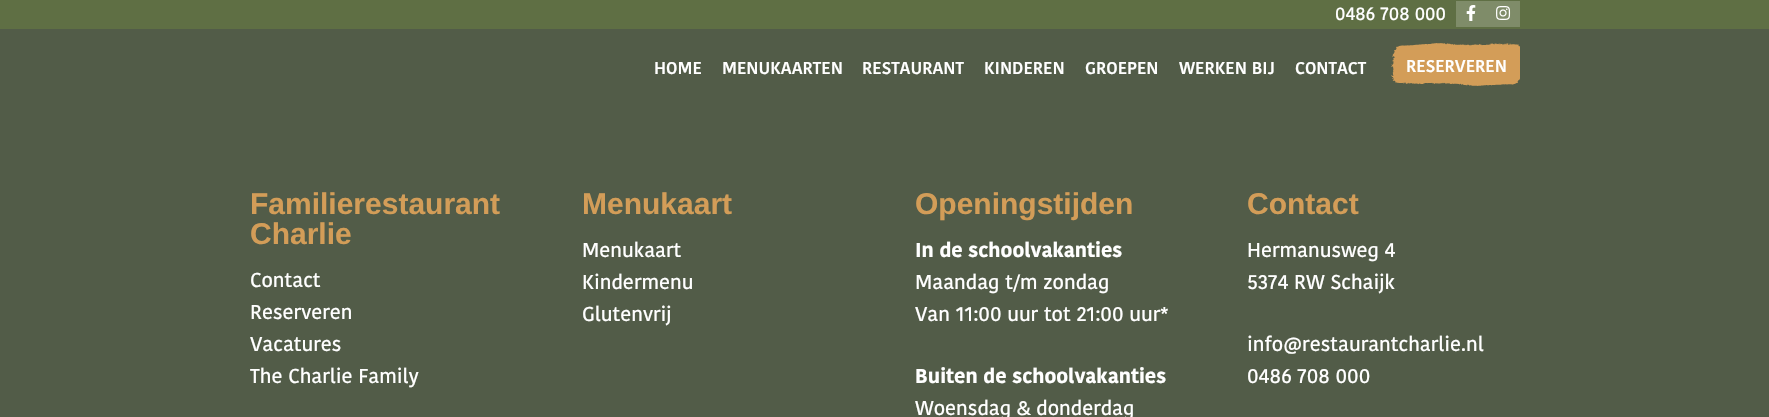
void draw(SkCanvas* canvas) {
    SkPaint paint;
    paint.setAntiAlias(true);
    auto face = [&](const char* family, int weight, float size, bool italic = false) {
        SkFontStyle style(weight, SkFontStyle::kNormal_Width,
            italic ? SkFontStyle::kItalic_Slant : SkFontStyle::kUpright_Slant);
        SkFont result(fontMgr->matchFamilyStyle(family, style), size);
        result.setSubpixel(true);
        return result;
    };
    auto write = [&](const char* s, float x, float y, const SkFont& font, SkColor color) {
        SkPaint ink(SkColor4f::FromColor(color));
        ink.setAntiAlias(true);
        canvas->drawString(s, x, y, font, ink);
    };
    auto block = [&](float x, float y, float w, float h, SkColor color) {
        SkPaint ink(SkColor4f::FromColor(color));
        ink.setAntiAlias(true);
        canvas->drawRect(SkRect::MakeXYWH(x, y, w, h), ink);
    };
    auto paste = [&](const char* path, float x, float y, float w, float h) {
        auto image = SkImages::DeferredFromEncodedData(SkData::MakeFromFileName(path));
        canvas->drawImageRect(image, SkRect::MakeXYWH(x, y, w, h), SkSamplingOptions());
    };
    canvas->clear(SkColorSetRGB(95, 111, 68));
    auto kFont1 = face("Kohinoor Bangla", 500, 18);
    write("0486 708 000", 1335, 20, kFont1, SK_ColorWHITE);
    block(1456, 1, 64, 26, SkColorSetRGB(127, 140, 105));
    paste("pic1.png", 1466, 5, 10, 16);
    paste("pic2.png", 1496, 6, 15, 14);
    block(0, 29, 1769, 388, SkColorSetRGB(82, 92, 72));
    auto kFont2 = face("Kohinoor Bangla", 600, 17);
    write("HOME", 654, 74, kFont2, SK_ColorWHITE);
    write("MENUKAARTEN", 722, 74, kFont2, SK_ColorWHITE);
    write("RESTAURANT", 862, 74, kFont2, SK_ColorWHITE);
    write("KINDEREN", 984, 74, kFont2, SK_ColorWHITE);
    write("GROEPEN", 1085, 74, kFont2, SK_ColorWHITE);
    write("WERKEN BIJ", 1179, 74, kFont2, SK_ColorWHITE);
    write("CONTACT", 1295, 74, kFont2, SK_ColorWHITE);
    paste("pic3.png", 1391, 43, 129, 43);
    write("RESERVEREN", 1406, 72, kFont2, SK_ColorWHITE);
    auto kFont3 = face("Liberation Sans", 700, 30);
    write("Familierestaurant", 250, 214, kFont3, SkColorSetRGB(211, 157, 88));
    write("Charlie", 250, 244, kFont3, SkColorSetRGB(211, 157, 88));
    auto kFont4 = face("Kohinoor Bangla", 500, 20);
    write("Contact", 250, 287, kFont4, SK_ColorWHITE);
    write("Reserveren", 250, 319, kFont4, SK_ColorWHITE);
    write("Vacatures", 250, 351, kFont4, SK_ColorWHITE);
    write("The Charlie Family", 250, 383, kFont4, SK_ColorWHITE);
    write("Menukaart", 582, 214, kFont3, SkColorSetRGB(211, 157, 88));
    write("Menukaart", 582, 257, kFont4, SK_ColorWHITE);
    write("Kindermenu", 582, 289, kFont4, SK_ColorWHITE);
    write("Glutenvrij", 582, 321, kFont4, SK_ColorWHITE);
    write("Openingstijden", 915, 214, kFont3, SkColorSetRGB(211, 157, 88));
    auto kFont5 = face("Kohinoor Bangla", 700, 20);
    write("In de schoolvakanties", 915, 257, kFont5, SK_ColorWHITE);
    write("Maandag t/m zondag", 915, 289, kFont4, SK_ColorWHITE);
    write("Van 11:00 uur tot 21:00 uur*", 915, 321, kFont4, SK_ColorWHITE);
    write("Buiten de schoolvakanties", 915, 383, kFont5, SK_ColorWHITE);
    write("Woensdag & donderdag", 915, 415, kFont4, SK_ColorWHITE);
    write("Contact", 1247, 214, kFont3, SkColorSetRGB(211, 157, 88));
    write("Hermanusweg 4", 1247, 257, kFont4, SK_ColorWHITE);
    write("5374 RW Schaijk", 1247, 289, kFont4, SK_ColorWHITE);
    write("info@restaurantcharlie.nl", 1247, 351, kFont4, SK_ColorWHITE);
    write("0486 708 000", 1247, 383, kFont4, SK_ColorWHITE);
}
